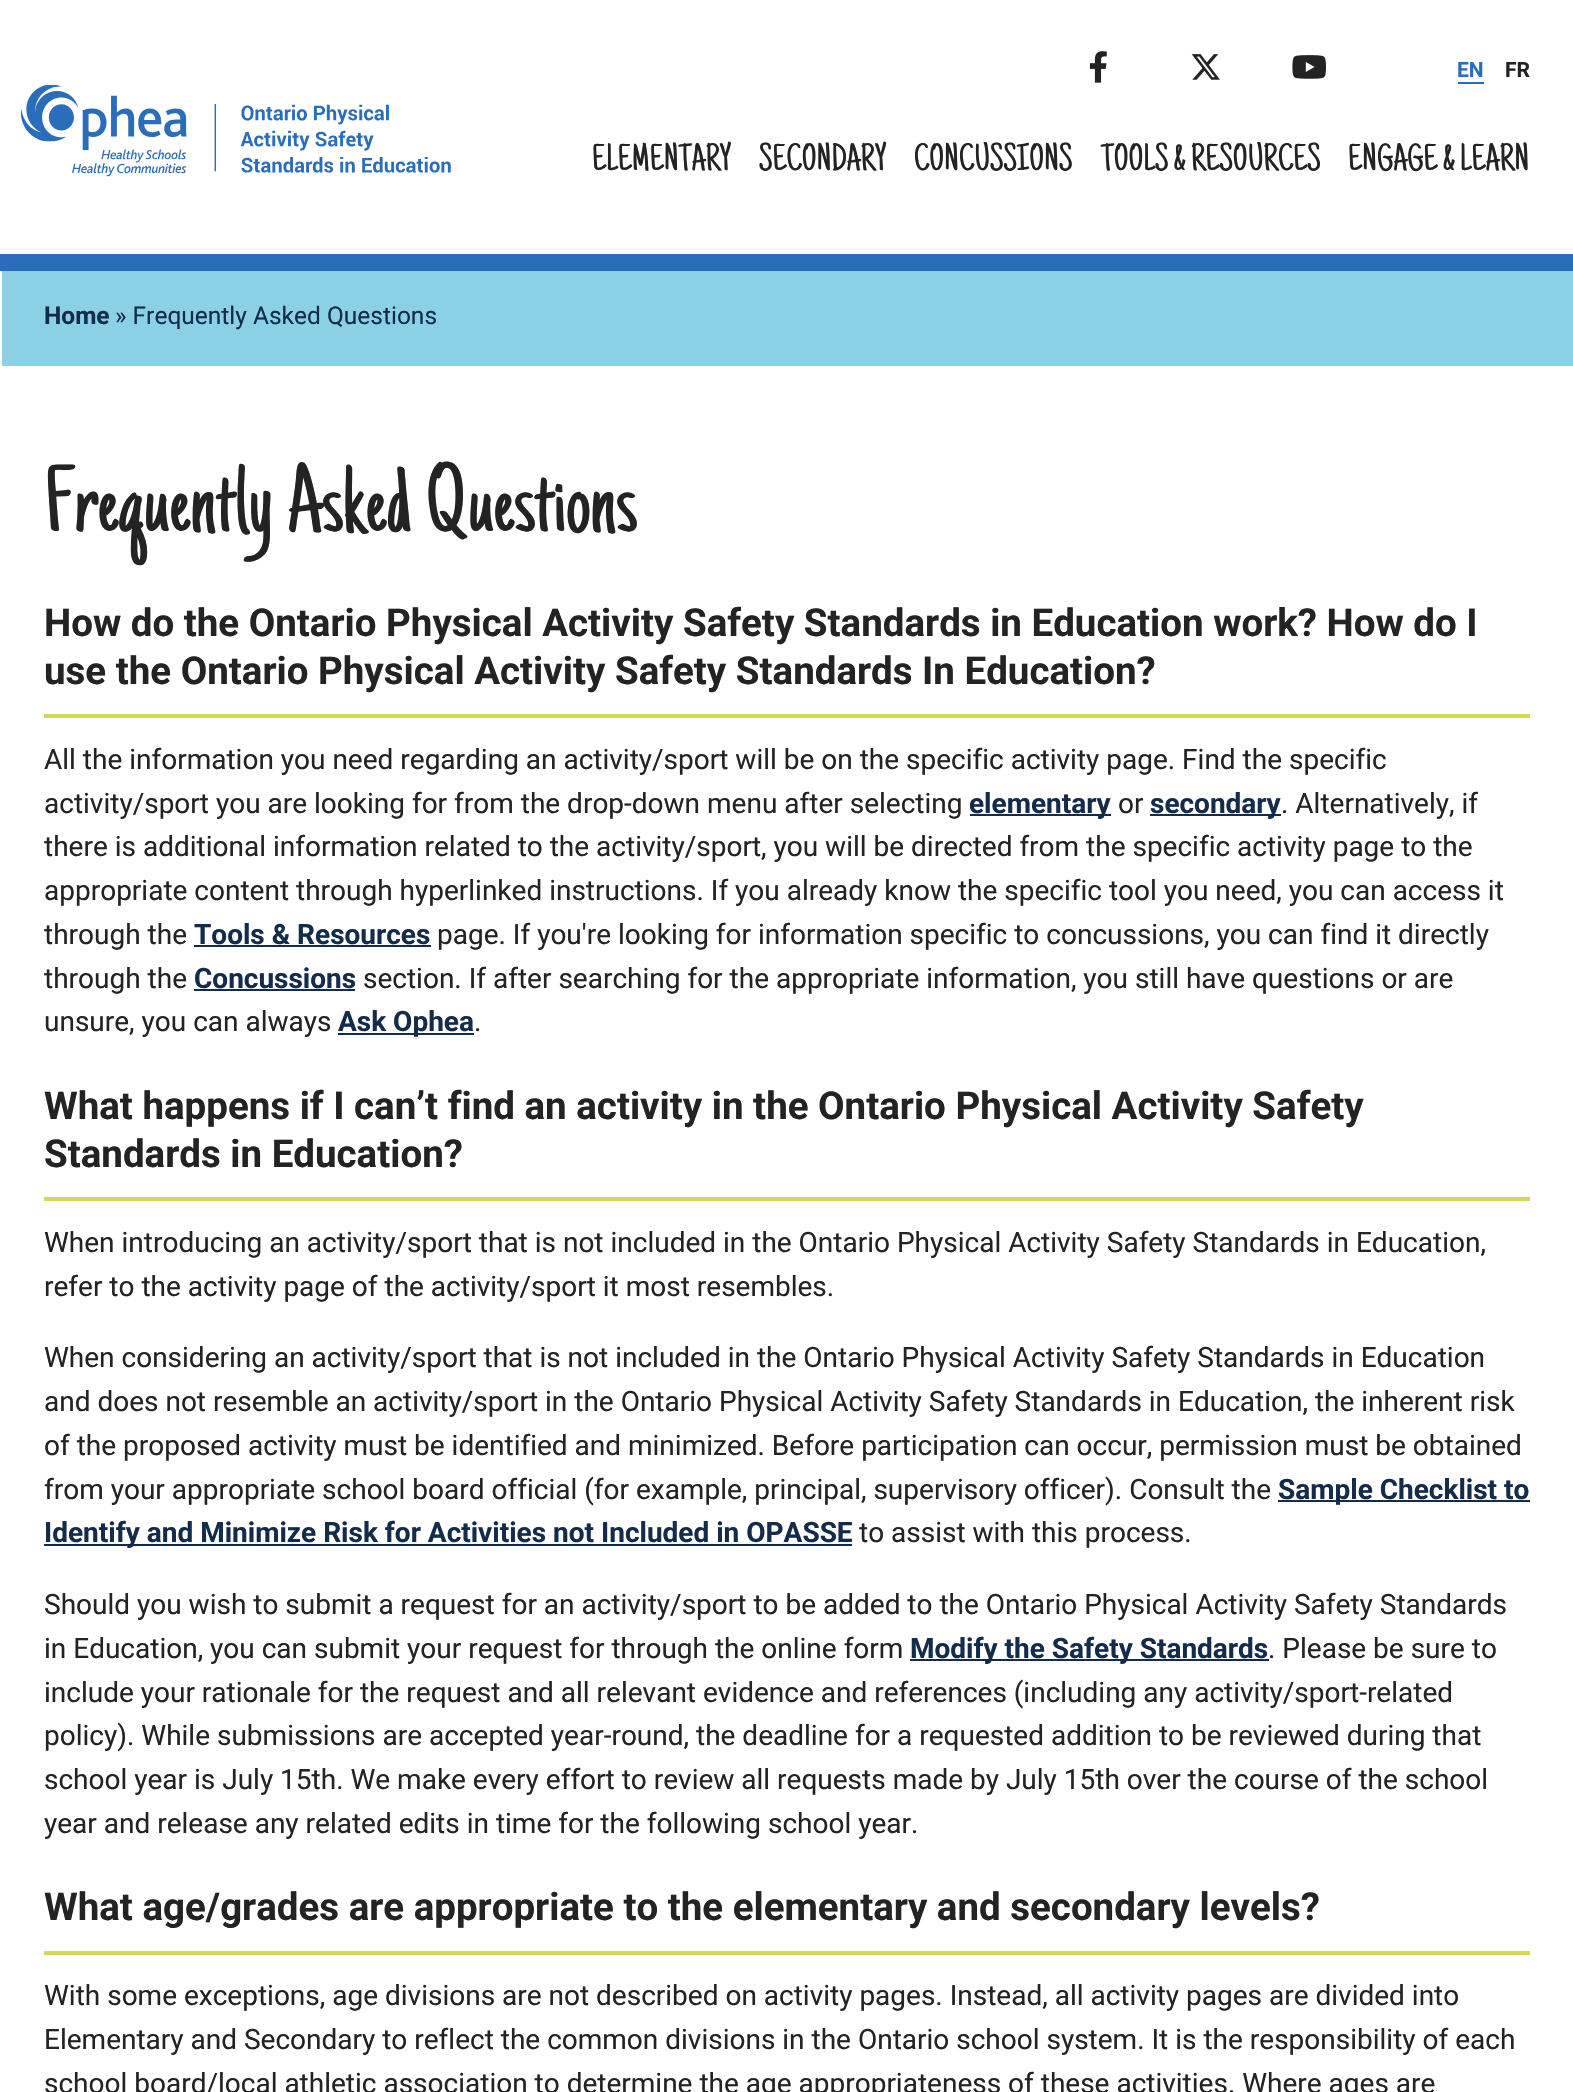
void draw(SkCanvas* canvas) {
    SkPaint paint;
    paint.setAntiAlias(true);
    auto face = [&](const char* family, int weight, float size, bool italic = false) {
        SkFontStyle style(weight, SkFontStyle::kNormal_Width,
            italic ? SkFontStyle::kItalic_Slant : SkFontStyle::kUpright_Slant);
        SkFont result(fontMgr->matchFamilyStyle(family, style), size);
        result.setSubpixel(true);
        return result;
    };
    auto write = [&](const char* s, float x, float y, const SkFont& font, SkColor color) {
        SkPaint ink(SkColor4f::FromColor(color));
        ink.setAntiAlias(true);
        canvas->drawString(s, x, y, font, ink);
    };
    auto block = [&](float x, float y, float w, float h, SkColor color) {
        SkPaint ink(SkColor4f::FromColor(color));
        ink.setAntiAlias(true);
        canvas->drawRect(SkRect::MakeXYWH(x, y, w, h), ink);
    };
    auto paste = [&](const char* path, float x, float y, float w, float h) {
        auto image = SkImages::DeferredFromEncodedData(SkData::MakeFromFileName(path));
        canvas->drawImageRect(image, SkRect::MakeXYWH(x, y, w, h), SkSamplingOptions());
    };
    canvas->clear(SK_ColorWHITE);
    paste("pic1.png", 1089, 51, 18, 32);
    paste("pic2.png", 1191, 54, 29, 26);
    paste("pic3.png", 1292, 55, 34, 24);
    auto kFont1 = face("Roboto", 700, 21);
    write("EN", 1457, 77, kFont1, SkColorSetRGB(42, 110, 187));
    block(1458, 82, 26, 2, SkColorSetRGB(42, 110, 187));
    write("FR", 1505, 77, kFont1, SkColorSetRGB(35, 35, 35));
    paste("pic4.png", 21, 85, 430, 92);
    auto kFont2 = face("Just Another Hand", 400, 38.5f);
    write("ELEMENTARY", 592, 170, kFont2, SkColorSetRGB(35, 35, 35));
    write("SECONDARY", 759, 170, kFont2, SkColorSetRGB(35, 35, 35));
    write("CONCUSSIONS", 914, 170, kFont2, SkColorSetRGB(35, 35, 35));
    write("TOOLS & RESOURCES", 1101, 170, kFont2, SkColorSetRGB(35, 35, 35));
    write("ENGAGE & LEARN", 1348, 170, kFont2, SkColorSetRGB(35, 35, 35));
    block(0, 254, 1573, 17, SkColorSetRGB(42, 110, 187));
    block(2, 271, 1571, 95, SkColorSetRGB(139, 209, 230));
    auto kFont3 = face("Roboto", 700, 24.5f);
    write("Home", 44, 324, kFont3, SkColorSetRGB(19, 44, 75));
    auto kFont4 = face("Roboto", 400, 24.5f);
    write("» Frequently Asked Questions", 115, 324, kFont4, SkColorSetRGB(19, 44, 75));
    auto kFont5 = face("Just Another Hand", 400, 98);
    write("Frequently Asked Questions", 44, 531, kFont5, SkColorSetRGB(35, 35, 35));
    block(44, 714, 1486, 4, SkColorSetRGB(214, 215, 84));
    auto kFont6 = face("Roboto", 700, 38.5f);
    write("How do the Ontario Physical Activity Safety Standards in Education work? How do I", 44, 636, kFont6, SkColorSetRGB(35, 35, 35));
    write("use the Ontario Physical Activity Safety Standards In Education?", 44, 684, kFont6, SkColorSetRGB(35, 35, 35));
    auto kFont7 = face("Roboto", 400, 28);
    write("All the information you need regarding an activity/sport will be on the specific activity page. Find the specific", 44, 769, kFont7, SkColorSetRGB(35, 35, 35));
    write("activity/sport you are looking for from the drop-down menu after selecting", 44, 813, kFont7, SkColorSetRGB(35, 35, 35));
    block(970, 814, 141, 2, SkColorSetRGB(19, 44, 75));
    auto kFont8 = face("Roboto", 700, 28);
    write("elementary", 969, 813, kFont8, SkColorSetRGB(19, 44, 75));
    write("or", 1118, 813, kFont7, SkColorSetRGB(35, 35, 35));
    block(1150, 814, 131, 2, SkColorSetRGB(19, 44, 75));
    write("secondary", 1150, 813, kFont8, SkColorSetRGB(19, 44, 75));
    write(". Alternatively, if", 1281, 813, kFont7, SkColorSetRGB(35, 35, 35));
    write("there is additional information related to the activity/sport, you will be directed from the specific activity page to the", 44, 856, kFont7, SkColorSetRGB(35, 35, 35));
    write("appropriate content through hyperlinked instructions. If you already know the specific tool you need, you can access it", 44, 900, kFont7, SkColorSetRGB(35, 35, 35));
    write("through the", 44, 944, kFont7, SkColorSetRGB(35, 35, 35));
    write("Tools & Resources", 194, 944, kFont8, SkColorSetRGB(19, 44, 75));
    block(194, 945, 237, 2, SkColorSetRGB(19, 44, 75));
    write("page. If you're looking for information specific to concussions, you can find it directly", 437, 944, kFont7, SkColorSetRGB(35, 35, 35));
    write("through the", 44, 988, kFont7, SkColorSetRGB(35, 35, 35));
    write("Concussions", 194, 988, kFont8, SkColorSetRGB(19, 44, 75));
    block(194, 989, 161, 2, SkColorSetRGB(19, 44, 75));
    write("section. If after searching for the appropriate information, you still have questions or are", 363, 988, kFont7, SkColorSetRGB(35, 35, 35));
    write("unsure, you can always", 44, 1031, kFont7, SkColorSetRGB(35, 35, 35));
    block(338, 1033, 136, 2, SkColorSetRGB(19, 44, 75));
    write("Ask Ophea", 338, 1031, kFont8, SkColorSetRGB(19, 44, 75));
    write(".", 474, 1031, kFont7, SkColorSetRGB(35, 35, 35));
    block(44, 1197, 1486, 4, SkColorSetRGB(214, 215, 84));
    write("What happens if I can’t find an activity in the Ontario Physical Activity Safety", 44, 1119, kFont6, SkColorSetRGB(35, 35, 35));
    write("Standards in Education?", 44, 1167, kFont6, SkColorSetRGB(35, 35, 35));
    write("When introducing an activity/sport that is not included in the Ontario Physical Activity Safety Standards in Education,", 44, 1252, kFont7, SkColorSetRGB(35, 35, 35));
    write("refer to the activity page of the activity/sport it most resembles.", 44, 1296, kFont7, SkColorSetRGB(35, 35, 35));
    write("When considering an activity/sport that is not included in the Ontario Physical Activity Safety Standards in Education", 44, 1367, kFont7, SkColorSetRGB(35, 35, 35));
    write("and does not resemble an activity/sport in the Ontario Physical Activity Safety Standards in Education, the inherent risk", 44, 1411, kFont7, SkColorSetRGB(35, 35, 35));
    write("of the proposed activity must be identified and minimized. Before participation can occur, permission must be obtained", 44, 1455, kFont7, SkColorSetRGB(35, 35, 35));
    write("from your appropriate school board official (for example, principal, supervisory officer). Consult the", 44, 1499, kFont7, SkColorSetRGB(35, 35, 35));
    block(1278, 1500, 252, 2, SkColorSetRGB(19, 44, 75));
    write("Sample Checklist to", 1278, 1499, kFont8, SkColorSetRGB(19, 44, 75));
    block(44, 1544, 808, 2, SkColorSetRGB(19, 44, 75));
    write("Identify and Minimize Risk for Activities not Included in OPASSE", 44, 1542, kFont8, SkColorSetRGB(19, 44, 75));
    write("to assist with this process.", 859, 1542, kFont7, SkColorSetRGB(35, 35, 35));
    write("Should you wish to submit a request for an activity/sport to be added to the Ontario Physical Activity Safety Standards", 44, 1614, kFont7, SkColorSetRGB(35, 35, 35));
    write("in Education, you can submit your request for through the online form", 44, 1658, kFont7, SkColorSetRGB(35, 35, 35));
    block(910, 1659, 359, 2, SkColorSetRGB(19, 44, 75));
    write("Modify the Safety Standards", 910, 1658, kFont8, SkColorSetRGB(19, 44, 75));
    write(". Please be sure to", 1268, 1658, kFont7, SkColorSetRGB(35, 35, 35));
    write("include your rationale for the request and all relevant evidence and references (including any activity/sport-related", 44, 1702, kFont7, SkColorSetRGB(35, 35, 35));
    write("policy). While submissions are accepted year-round, the deadline for a requested addition to be reviewed during that", 44, 1745, kFont7, SkColorSetRGB(35, 35, 35));
    write("school year is July 15th. We make every effort to review all requests made by July 15th over the course of the school", 44, 1789, kFont7, SkColorSetRGB(35, 35, 35));
    write("year and release any related edits in time for the following school year.", 44, 1833, kFont7, SkColorSetRGB(35, 35, 35));
    block(44, 1951, 1486, 4, SkColorSetRGB(214, 215, 84));
    write("What age/grades are appropriate to the elementary and secondary levels?", 44, 1920, kFont6, SkColorSetRGB(35, 35, 35));
    write("With some exceptions, age divisions are not described on activity pages. Instead, all activity pages are divided into", 44, 2005, kFont7, SkColorSetRGB(35, 35, 35));
    write("Elementary and Secondary to reflect the common divisions in the Ontario school system. It is the responsibility of each", 44, 2049, kFont7, SkColorSetRGB(35, 35, 35));
    write("school board/local athletic association to determine the age appropriateness of these activities. Where ages are", 44, 2093, kFont7, SkColorSetRGB(35, 35, 35));
}
